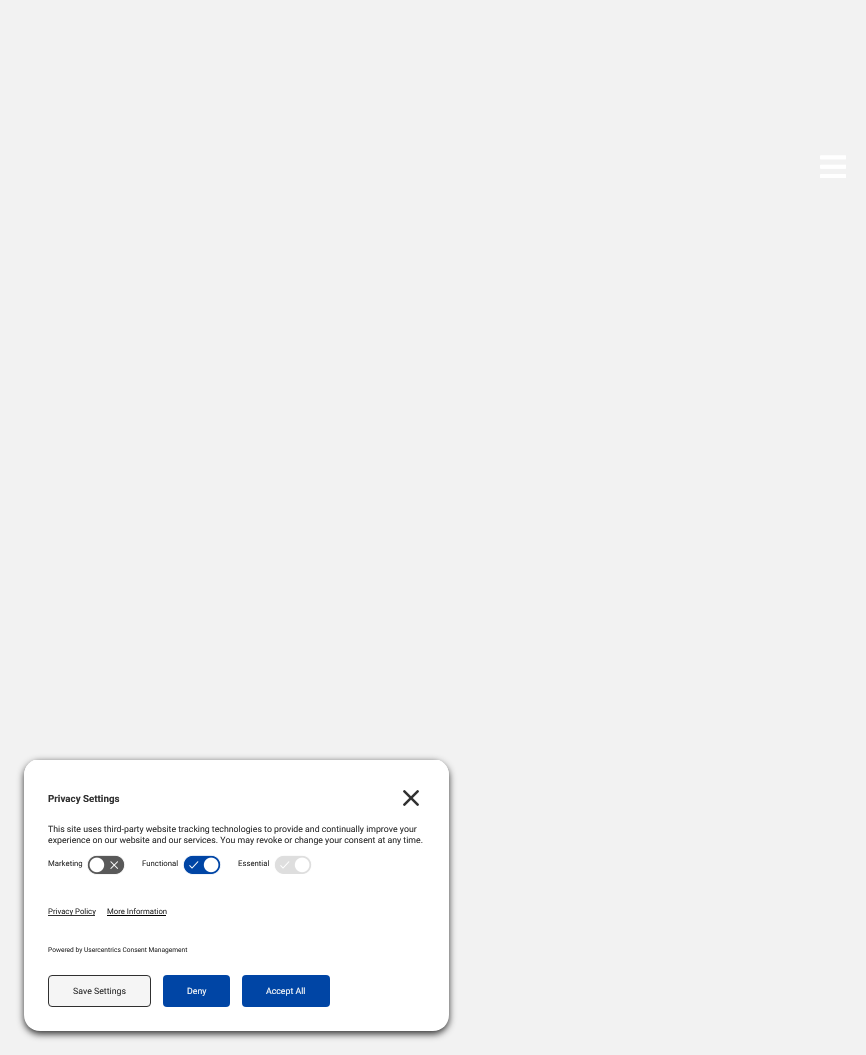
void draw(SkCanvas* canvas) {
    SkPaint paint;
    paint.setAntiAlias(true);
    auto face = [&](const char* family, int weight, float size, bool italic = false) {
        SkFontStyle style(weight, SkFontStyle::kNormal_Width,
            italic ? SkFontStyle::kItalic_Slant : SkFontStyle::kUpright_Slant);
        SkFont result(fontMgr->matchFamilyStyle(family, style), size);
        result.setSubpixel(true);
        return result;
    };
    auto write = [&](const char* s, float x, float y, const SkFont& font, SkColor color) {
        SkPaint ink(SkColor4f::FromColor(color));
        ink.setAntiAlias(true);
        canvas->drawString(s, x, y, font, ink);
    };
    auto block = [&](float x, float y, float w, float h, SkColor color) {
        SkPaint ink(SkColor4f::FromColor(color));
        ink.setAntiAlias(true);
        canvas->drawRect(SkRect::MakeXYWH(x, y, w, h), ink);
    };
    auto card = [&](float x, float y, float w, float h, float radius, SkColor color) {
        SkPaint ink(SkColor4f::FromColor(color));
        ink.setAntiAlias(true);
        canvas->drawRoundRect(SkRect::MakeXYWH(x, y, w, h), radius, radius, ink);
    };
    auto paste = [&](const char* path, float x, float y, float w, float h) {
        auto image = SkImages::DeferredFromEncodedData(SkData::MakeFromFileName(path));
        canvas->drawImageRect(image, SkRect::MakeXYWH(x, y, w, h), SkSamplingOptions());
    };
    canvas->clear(SkColorSetRGB(242, 242, 242));
    paste("pic1.png", 820, 155, 26, 23);
    paint.setColor(SkColorSetARGB(204, 0, 0, 0));
    paint.setMaskFilter(SkMaskFilter::MakeBlur(kNormal_SkBlurStyle, 3.5f));
    canvas->drawRoundRect(SkRect::MakeXYWH(24, 762, 425, 272), 16, 16, paint);
    paint.setMaskFilter(nullptr);
    canvas->save();
    canvas->clipPath(SkPathBuilder().moveTo(40, 759).lineTo(433, 759).cubicTo(442, 759, 449, 766, 449, 775).lineTo(449, 890).lineTo(24, 890).lineTo(24, 775).cubicTo(24, 766, 31, 759, 40, 759).close().detach(), true);
    block(24, 760, 425, 130, SK_ColorWHITE);
    block(24, 760, 425, 90, SK_ColorWHITE);
    canvas->restore();
    auto kFont1 = face("Roboto", 700, 9.75f);
    write("Privacy Settings", 48, 802, kFont1, SkColorSetRGB(48, 48, 48));
    paste("pic2.png", 403, 790, 16, 16);
    auto kFont2 = face("Roboto", 400, 8.75f);
    write("This site uses third-party website tracking technologies to provide and continually improve your", 48, 832, kFont2, SkColorSetRGB(48, 48, 48));
    write("experience on our website and our services. You may revoke or change your consent at any time.", 48, 843, kFont2, SkColorSetRGB(48, 48, 48));
    auto kFont3 = face("Roboto", 400, 7.75f);
    write("Marketing", 48, 866, kFont3, SkColorSetRGB(48, 48, 48));
    paste("pic3.png", 87, 855, 38, 20);
    write("Functional", 142, 866, kFont3, SkColorSetRGB(48, 48, 48));
    paste("pic4.png", 183, 855, 38, 20);
    write("Essential", 238, 866, kFont3, SkColorSetRGB(48, 48, 48));
    paste("pic5.png", 274, 855, 38, 19);
    paint.setColor(SK_ColorWHITE);
    canvas->drawPath(SkPathBuilder().moveTo(24, 890).lineTo(449, 890).lineTo(449, 1015).cubicTo(449, 1024, 442, 1031, 433, 1031).lineTo(40, 1031).cubicTo(31, 1031, 24, 1024, 24, 1015).close().detach(), paint);
    block(48, 915, 47, 1, SkColorSetRGB(48, 48, 48));
    write("Privacy Policy", 48, 914, kFont3, SkColorSetRGB(48, 48, 48));
    write("More Information", 107, 914, kFont3, SkColorSetRGB(48, 48, 48));
    block(107, 915, 59, 1, SK_ColorBLACK);
    auto kFont4 = face("Roboto", 400, 6.6f);
    write("Powered by Usercentrics Consent Management", 48, 952, kFont4, SkColorSetRGB(48, 48, 48));
    paint.setColor(SkColorSetRGB(245, 245, 245));
    canvas->drawRoundRect(SkRect::MakeXYWH(48.5f, 975.5f, 102, 31), 3.5f, 3.5f, paint);
    paint.setStyle(SkPaint::kStroke_Style);
    paint.setStrokeWidth(1);
    paint.setColor(SkColorSetRGB(48, 48, 48));
    canvas->drawRoundRect(SkRect::MakeXYWH(48.5f, 975.5f, 102, 31), 3.5f, 3.5f, paint);
    write("Save Settings", 73, 994, kFont2, SkColorSetRGB(48, 48, 48));
    card(163, 975, 67, 32, 4, SkColorSetRGB(0, 69, 165));
    write("Deny", 187, 994, kFont2, SkColorSetRGB(250, 250, 250));
    card(242, 975, 88, 32, 4, SkColorSetRGB(0, 69, 165));
    write("Accept All", 266, 994, kFont2, SkColorSetRGB(250, 250, 250));
}
